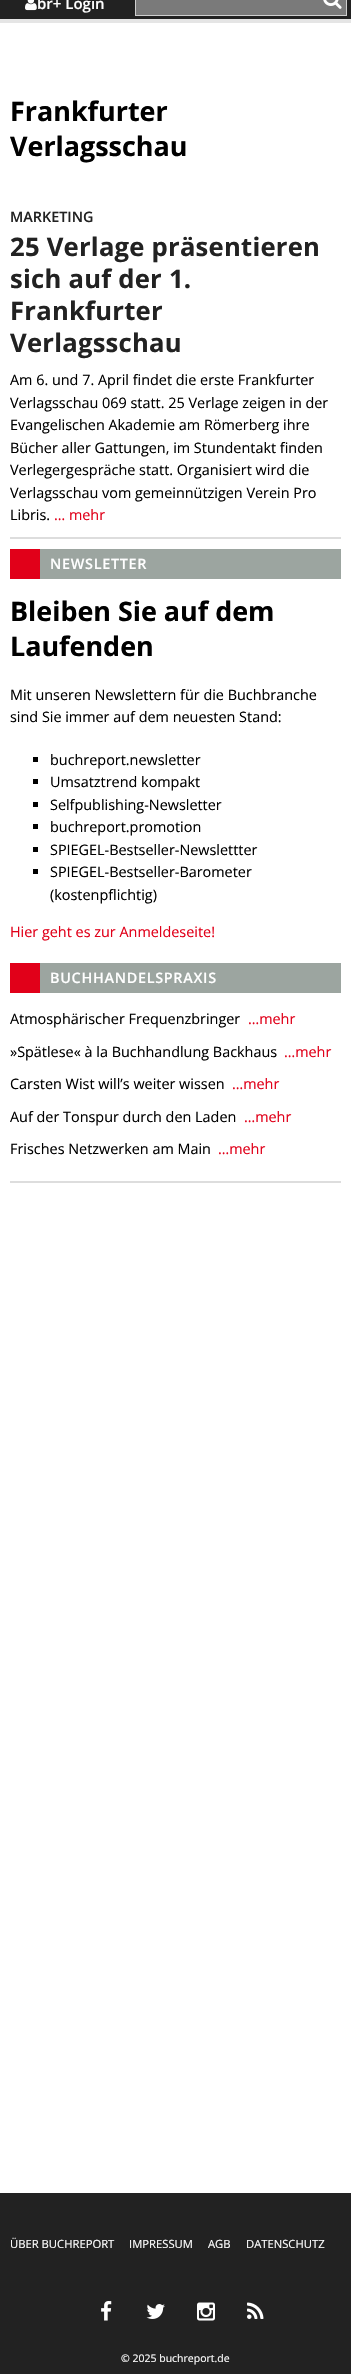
void draw(SkCanvas* canvas) {
    SkPaint paint;
    paint.setAntiAlias(true);
    auto face = [&](const char* family, int weight, float size, bool italic = false) {
        SkFontStyle style(weight, SkFontStyle::kNormal_Width,
            italic ? SkFontStyle::kItalic_Slant : SkFontStyle::kUpright_Slant);
        SkFont result(fontMgr->matchFamilyStyle(family, style), size);
        result.setSubpixel(true);
        return result;
    };
    auto write = [&](const char* s, float x, float y, const SkFont& font, SkColor color) {
        SkPaint ink(SkColor4f::FromColor(color));
        ink.setAntiAlias(true);
        canvas->drawString(s, x, y, font, ink);
    };
    auto writeSpaced = [&](const char* s, float x, float y, const SkFont& font, const SkPaint& ink, float letter, float word) {
        std::vector<SkGlyphID> glyphs(font.countText(s, strlen(s), SkTextEncoding::kUTF8));
        std::vector<float> xs(glyphs.size());
        font.textToGlyphs(s, strlen(s), SkTextEncoding::kUTF8, glyphs);
        font.getXPos(glyphs, xs, x);
        float extra = 0;
        for (size_t i = 0; i < glyphs.size(); i++) {
            xs[i] += extra;
            extra += letter + word * (glyphs[i] == font.unicharToGlyph(' '));
        }
        canvas->drawTextBlob(SkTextBlob::MakeFromPosHGlyphs(glyphs, xs, y, font), 0, 0, ink);
    };
    auto block = [&](float x, float y, float w, float h, SkColor color) {
        SkPaint ink(SkColor4f::FromColor(color));
        ink.setAntiAlias(true);
        canvas->drawRect(SkRect::MakeXYWH(x, y, w, h), ink);
    };
    auto paste = [&](const char* path, float x, float y, float w, float h) {
        auto image = SkImages::DeferredFromEncodedData(SkData::MakeFromFileName(path));
        canvas->drawImageRect(image, SkRect::MakeXYWH(x, y, w, h), SkSamplingOptions());
    };
    canvas->clear(SK_ColorWHITE);
    block(0, 0, 351, 19, SkColorSetRGB(34, 34, 34));
    block(0, 19, 351, 4, SkColorSetRGB(229, 229, 229));
    paste("pic1.png", 25, 0, 12, 11);
    auto kFont1 = face("Open Sans", 600, 15);
    write("br+ Login", 37, 9, kFont1, SK_ColorWHITE);
    paint.setColor(SkColorSetRGB(122, 122, 122));
    canvas->drawRect(SkRect::MakeXYWH(135.5f, -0.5f, 211, 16), paint);
    paint.setStyle(SkPaint::kStroke_Style);
    paint.setStrokeWidth(1);
    paint.setColor(SkColorSetRGB(207, 207, 207));
    canvas->drawRect(SkRect::MakeXYWH(135.5f, -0.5f, 211, 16), paint);
    paste("pic2.png", 323, 0, 19, 9);
    auto kFont2 = face("Open Sans", 700, 26.9f);
    write("Frankfurter", 10, 121, kFont2, SK_ColorBLACK);
    write("Verlagsschau", 10, 156, kFont2, SK_ColorBLACK);
    auto kFont3 = face("Open Sans", 600, 14.4f);
    write("MARKETING", 10, 222, kFont3, SkColorSetRGB(34, 34, 34));
    auto kFont4 = face("Open Sans", 700, 25.6f);
    paint.setStyle(SkPaint::kFill_Style);
    paint.setColor(SkColorSetRGB(34, 34, 34));
    writeSpaced("25 Verlage präsentieren", 10, 256, kFont4, paint, 0.25f, 0);
    writeSpaced("sich auf der 1.", 10, 288, kFont4, paint, 0.25f, 0);
    writeSpaced("Frankfurter", 10, 320, kFont4, paint, 0.25f, 0);
    writeSpaced("Verlagsschau", 10, 352, kFont4, paint, 0.25f, 0);
    auto kFont5 = face("Open Sans", 400, 14.4f);
    write("Am 6. und 7. April findet die erste Frankfurter", 10, 385, kFont5, SK_ColorBLACK);
    write("Verlagsschau 069 statt. 25 Verlage zeigen in der", 10, 408, kFont5, SK_ColorBLACK);
    write("Evangelischen Akademie am Römerberg ihre", 10, 430, kFont5, SK_ColorBLACK);
    write("Bücher aller Gattungen, im Stundentakt finden", 10, 453, kFont5, SK_ColorBLACK);
    write("Verlegergespräche statt. Organisiert wird die", 10, 475, kFont5, SK_ColorBLACK);
    write("Verlagsschau vom gemeinnützigen Verein Pro", 10, 498, kFont5, SK_ColorBLACK);
    write("Libris.", 10, 520, kFont5, SK_ColorBLACK);
    write("… mehr", 54, 520, kFont5, SkColorSetRGB(225, 0, 25));
    block(10, 537, 331, 2, SkColorSetRGB(221, 221, 221));
    block(40, 549, 301, 30, SkColorSetRGB(156, 165, 160));
    block(10, 549, 30, 30, SkColorSetRGB(225, 0, 25));
    paint.setColor(SK_ColorWHITE);
    writeSpaced("NEWSLETTER", 50, 569, kFont3, paint, 0.7f, 0);
    write("Bleiben Sie auf dem", 10, 621, kFont2, SK_ColorBLACK);
    write("Laufenden", 10, 656, kFont2, SK_ColorBLACK);
    write("Mit unseren Newslettern für die Buchbranche", 10, 700, kFont5, SK_ColorBLACK);
    write("sind Sie immer auf dem neuesten Stand:", 10, 722, kFont5, SK_ColorBLACK);
    block(33, 757, 5, 5, SK_ColorBLACK);
    write("buchreport.newsletter", 50, 765, kFont5, SK_ColorBLACK);
    block(33, 779, 5, 5, SK_ColorBLACK);
    write("Umsatztrend kompakt", 50, 787, kFont5, SK_ColorBLACK);
    block(33, 802, 5, 5, SK_ColorBLACK);
    write("Selfpublishing-Newsletter", 50, 810, kFont5, SK_ColorBLACK);
    block(33, 824, 5, 5, SK_ColorBLACK);
    write("buchreport.promotion", 50, 832, kFont5, SK_ColorBLACK);
    block(33, 847, 5, 5, SK_ColorBLACK);
    write("SPIEGEL-Bestseller-Newslettter", 50, 855, kFont5, SK_ColorBLACK);
    block(33, 869, 5, 5, SK_ColorBLACK);
    write("SPIEGEL-Bestseller-Barometer", 50, 877, kFont5, SK_ColorBLACK);
    write("(kostenpflichtig)", 50, 900, kFont5, SK_ColorBLACK);
    write("Hier geht es zur Anmeldeseite!", 10, 937, kFont5, SkColorSetRGB(225, 0, 25));
    block(40, 963, 301, 30, SkColorSetRGB(156, 165, 160));
    block(10, 963, 30, 30, SkColorSetRGB(225, 0, 25));
    writeSpaced("BUCHHANDELSPRAXIS", 50, 983, kFont3, paint, 0.7f, 0);
    write("Atmosphärischer Frequenzbringer", 10, 1024, kFont5, SK_ColorBLACK);
    write("…mehr", 248, 1024, kFont5, SkColorSetRGB(225, 0, 25));
    write("»Spätlese« à la Buchhandlung Backhaus", 10, 1057, kFont5, SK_ColorBLACK);
    write("…mehr", 284, 1057, kFont5, SkColorSetRGB(225, 0, 25));
    write("Carsten Wist will’s weiter wissen", 10, 1089, kFont5, SK_ColorBLACK);
    write("…mehr", 232, 1089, kFont5, SkColorSetRGB(225, 0, 25));
    write("Auf der Tonspur durch den Laden", 10, 1122, kFont5, SK_ColorBLACK);
    write("…mehr", 244, 1122, kFont5, SkColorSetRGB(225, 0, 25));
    write("Frisches Netzwerken am Main", 10, 1154, kFont5, SK_ColorBLACK);
    write("…mehr", 218, 1154, kFont5, SkColorSetRGB(225, 0, 25));
    block(10, 1181, 331, 2, SkColorSetRGB(221, 221, 221));
    block(0, 2193, 351, 181, SkColorSetRGB(34, 34, 34));
    auto kFont6 = face("Open Sans", 400, 11.25f);
    write("ÜBER BUCHREPORT", 10, 2248, kFont6, SK_ColorWHITE);
    write("IMPRESSUM", 129, 2248, kFont6, SK_ColorWHITE);
    write("AGB", 208, 2248, kFont6, SK_ColorWHITE);
    write("DATENSCHUTZ", 246, 2248, kFont6, SK_ColorWHITE);
    paste("pic3.png", 101, 2301, 11, 20);
    paste("pic4.png", 146, 2304, 19, 15);
    paste("pic5.png", 197, 2302, 18, 19);
    paste("pic6.png", 247, 2302, 17, 17);
    auto kFont7 = face("Open Sans", 400, 10.5f);
    write("© 2025 buchreport.de", 121, 2362, kFont7, SK_ColorWHITE);
}
